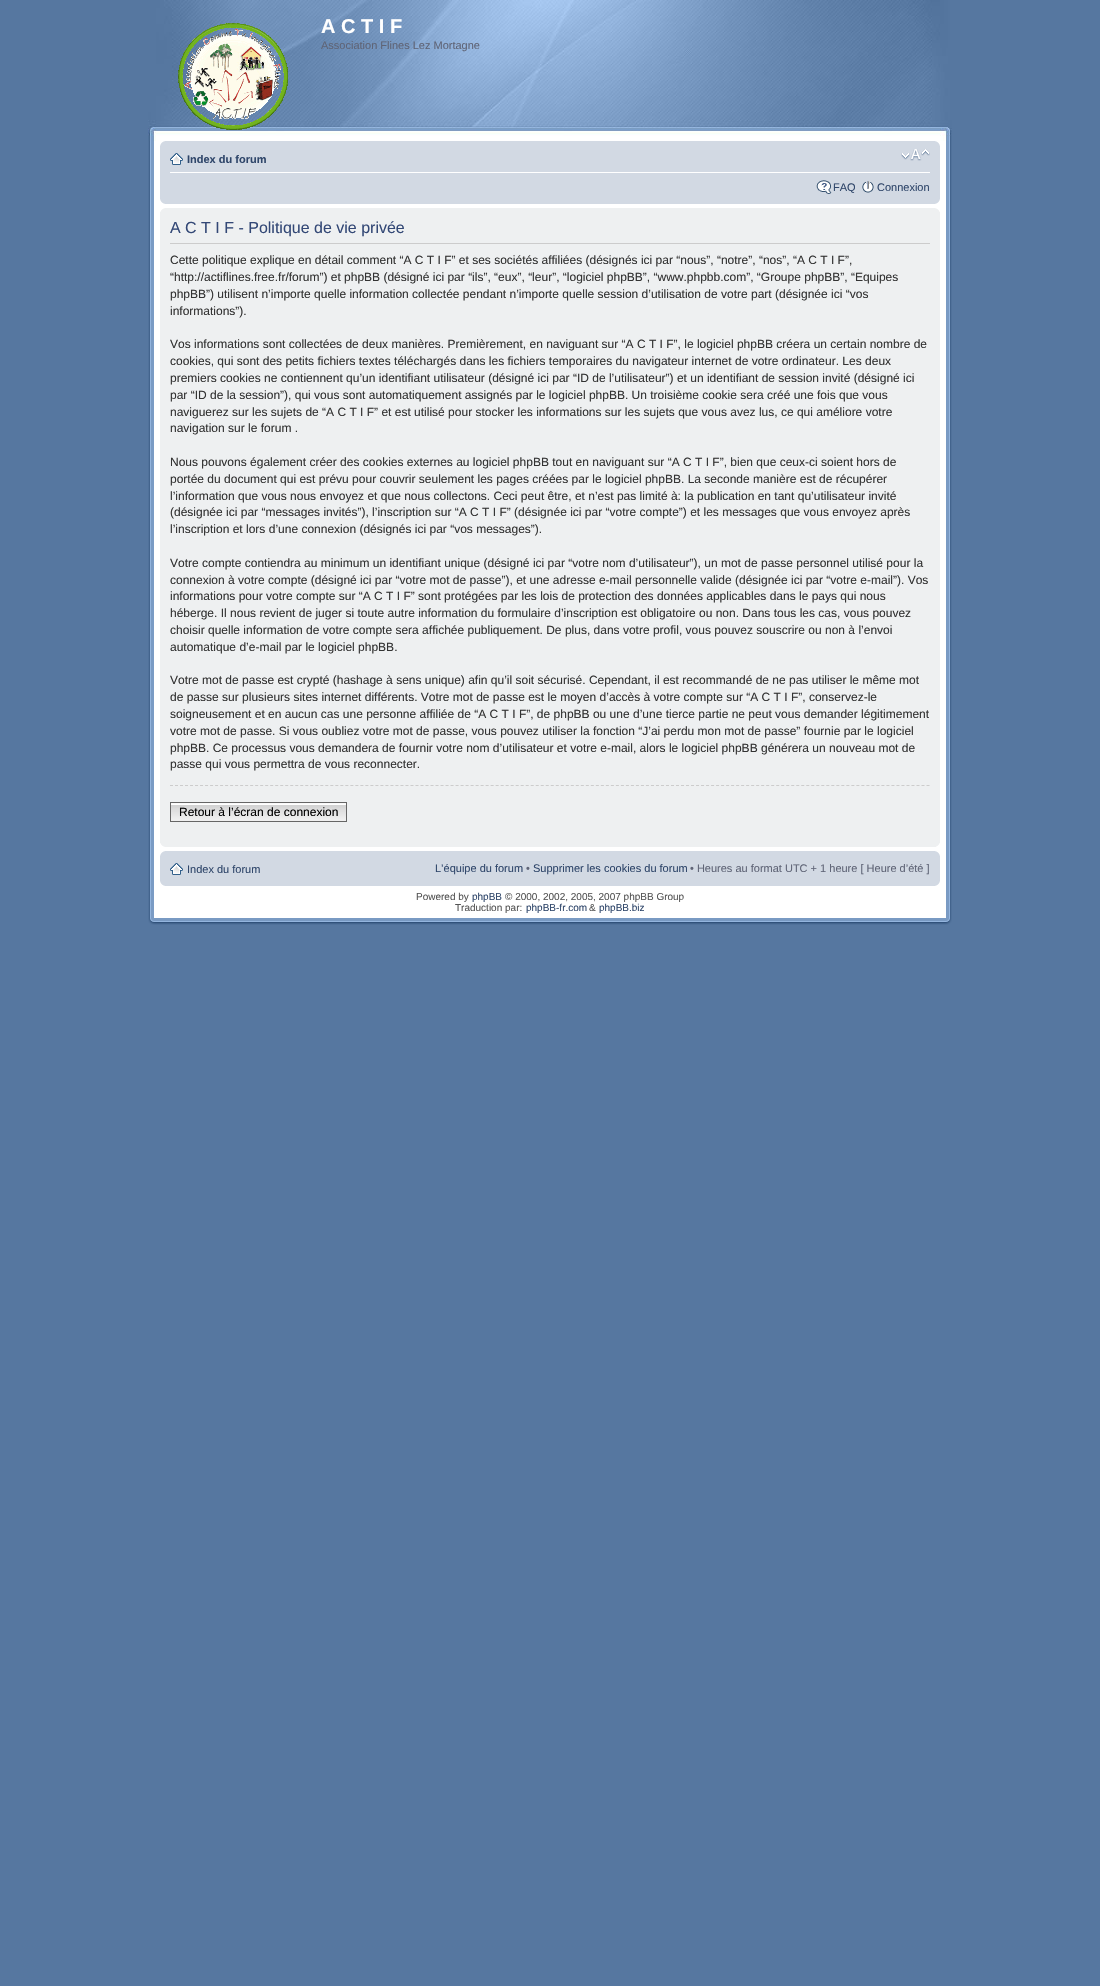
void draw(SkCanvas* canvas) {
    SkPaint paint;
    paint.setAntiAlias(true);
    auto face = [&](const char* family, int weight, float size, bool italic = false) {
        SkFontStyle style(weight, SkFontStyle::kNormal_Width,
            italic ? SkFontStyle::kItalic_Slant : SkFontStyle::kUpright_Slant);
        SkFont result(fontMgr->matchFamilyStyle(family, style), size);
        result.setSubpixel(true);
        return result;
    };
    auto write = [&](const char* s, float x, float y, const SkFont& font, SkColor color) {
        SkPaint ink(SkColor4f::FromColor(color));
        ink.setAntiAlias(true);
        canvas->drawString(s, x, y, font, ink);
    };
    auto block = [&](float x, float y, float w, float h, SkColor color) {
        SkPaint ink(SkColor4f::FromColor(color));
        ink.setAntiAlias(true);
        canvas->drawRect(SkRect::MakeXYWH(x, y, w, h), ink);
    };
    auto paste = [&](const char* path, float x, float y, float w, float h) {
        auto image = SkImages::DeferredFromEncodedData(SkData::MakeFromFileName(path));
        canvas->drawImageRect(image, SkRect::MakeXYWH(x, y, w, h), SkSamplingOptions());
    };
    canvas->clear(SkColorSetRGB(86, 119, 160));
    paste("pic1.png", 148, 0, 804, 141);
    paste("pic2.png", 178, 23, 110, 107);
    auto kFont1 = face("Liberation Sans", 700, 20);
    write("A C T I F", 321, 33, kFont1, SK_ColorWHITE);
    auto kFont2 = face("Liberation Sans", 400, 11);
    write("Association Flines Lez Mortagne", 321, 49, kFont2, SkColorSetRGB(95, 100, 118));
    paste("pic3.png", 148, 141, 804, 777);
    block(160, 141, 780, 63, SkColorSetRGB(210, 217, 227));
    paste("pic4.png", 160, 141, 5, 5);
    paste("pic5.png", 935, 141, 5, 5);
    block(170, 172, 760, 1, SK_ColorWHITE);
    paste("pic6.png", 170, 153, 13, 12);
    auto kFont3 = face("Liberation Sans", 700, 11);
    write("Index du forum", 187, 163, kFont3, SkColorSetRGB(47, 70, 106));
    paste("pic7.png", 901, 149, 29, 12);
    paste("pic8.png", 816, 180, 16, 14);
    write("FAQ", 833, 191, kFont2, SkColorSetRGB(47, 70, 106));
    paste("pic9.png", 862, 181, 12, 12);
    write("Connexion", 877, 191, kFont2, SkColorSetRGB(47, 70, 106));
    paste("pic10.png", 160, 199, 5, 5);
    paste("pic11.png", 935, 199, 5, 5);
    block(160, 208, 780, 639, SkColorSetRGB(238, 240, 241));
    paste("pic12.png", 160, 208, 5, 4);
    paste("pic13.png", 935, 208, 5, 4);
    block(170, 243, 760, 1, SkColorSetRGB(204, 204, 204));
    auto kFont4 = face("Liberation Sans", 400, 16);
    write("A C T I F - Politique de vie privée", 170, 233, kFont4, SkColorSetRGB(51, 72, 118));
    auto kFont5 = face("Liberation Sans", 400, 12);
    write("Cette politique explique en détail comment “A C T I F” et ses sociétés affiliées (désignés ici par “nous”, “notre”, “nos”, “A C T I F”,", 170, 264, kFont5, SkColorSetRGB(51, 51, 51));
    write("“http://actiflines.free.fr/forum”) et phpBB (désigné ici par “ils”, “eux”, “leur”, “logiciel phpBB”, “www.phpbb.com”, “Groupe phpBB”, “Equipes", 170, 281, kFont5, SkColorSetRGB(51, 51, 51));
    write("phpBB”) utilisent n’importe quelle information collectée pendant n’importe quelle session d’utilisation de votre part (désignée ici “vos", 170, 298, kFont5, SkColorSetRGB(51, 51, 51));
    write("informations”).", 170, 315, kFont5, SkColorSetRGB(51, 51, 51));
    write("Vos informations sont collectées de deux manières. Premièrement, en naviguant sur “A C T I F”, le logiciel phpBB créera un certain nombre de", 170, 348, kFont5, SkColorSetRGB(51, 51, 51));
    write("cookies, qui sont des petits fichiers textes téléchargés dans les fichiers temporaires du navigateur internet de votre ordinateur. Les deux", 170, 365, kFont5, SkColorSetRGB(51, 51, 51));
    write("premiers cookies ne contiennent qu’un identifiant utilisateur (désigné ici par “ID de l’utilisateur”) et un identifiant de session invité (désigné ici", 170, 382, kFont5, SkColorSetRGB(51, 51, 51));
    write("par “ID de la session”), qui vous sont automatiquement assignés par le logiciel phpBB. Un troisième cookie sera créé une fois que vous", 170, 399, kFont5, SkColorSetRGB(51, 51, 51));
    write("naviguerez sur les sujets de “A C T I F” et est utilisé pour stocker les informations sur les sujets que vous avez lus, ce qui améliore votre", 170, 416, kFont5, SkColorSetRGB(51, 51, 51));
    write("navigation sur le forum .", 170, 432, kFont5, SkColorSetRGB(51, 51, 51));
    write("Nous pouvons également créer des cookies externes au logiciel phpBB tout en naviguant sur “A C T I F”, bien que ceux-ci soient hors de", 170, 466, kFont5, SkColorSetRGB(51, 51, 51));
    write("portée du document qui est prévu pour couvrir seulement les pages créées par le logiciel phpBB. La seconde manière est de récupérer", 170, 483, kFont5, SkColorSetRGB(51, 51, 51));
    write("l’information que vous nous envoyez et que nous collectons. Ceci peut être, et n’est pas limité à: la publication en tant qu’utilisateur invité", 170, 500, kFont5, SkColorSetRGB(51, 51, 51));
    write("(désignée ici par “messages invités”), l’inscription sur “A C T I F” (désignée ici par “votre compte”) et les messages que vous envoyez après", 170, 516, kFont5, SkColorSetRGB(51, 51, 51));
    write("l’inscription et lors d’une connexion (désignés ici par “vos messages”).", 170, 533, kFont5, SkColorSetRGB(51, 51, 51));
    write("Votre compte contiendra au minimum un identifiant unique (désigné ici par “votre nom d’utilisateur”), un mot de passe personnel utilisé pour la", 170, 567, kFont5, SkColorSetRGB(51, 51, 51));
    write("connexion à votre compte (désigné ici par “votre mot de passe”), et une adresse e-mail personnelle valide (désignée ici par “votre e-mail”). Vos", 170, 584, kFont5, SkColorSetRGB(51, 51, 51));
    write("informations pour votre compte sur “A C T I F” sont protégées par les lois de protection des données applicables dans le pays qui nous", 170, 600, kFont5, SkColorSetRGB(51, 51, 51));
    write("héberge. Il nous revient de juger si toute autre information du formulaire d’inscription est obligatoire ou non. Dans tous les cas, vous pouvez", 170, 617, kFont5, SkColorSetRGB(51, 51, 51));
    write("choisir quelle information de votre compte sera affichée publiquement. De plus, dans votre profil, vous pouvez souscrire ou non à l’envoi", 170, 634, kFont5, SkColorSetRGB(51, 51, 51));
    write("automatique d’e-mail par le logiciel phpBB.", 170, 651, kFont5, SkColorSetRGB(51, 51, 51));
    write("Votre mot de passe est crypté (hashage à sens unique) afin qu’il soit sécurisé. Cependant, il est recommandé de ne pas utiliser le même mot", 170, 684, kFont5, SkColorSetRGB(51, 51, 51));
    write("de passe sur plusieurs sites internet différents. Votre mot de passe est le moyen d’accès à votre compte sur “A C T I F”, conservez-le", 170, 701, kFont5, SkColorSetRGB(51, 51, 51));
    write("soigneusement et en aucun cas une personne affiliée de “A C T I F”, de phpBB ou une d’une tierce partie ne peut vous demander légitimement", 170, 718, kFont5, SkColorSetRGB(51, 51, 51));
    write("votre mot de passe. Si vous oubliez votre mot de passe, vous pouvez utiliser la fonction “J’ai perdu mon mot de passe” fournie par le logiciel", 170, 735, kFont5, SkColorSetRGB(51, 51, 51));
    write("phpBB. Ce processus vous demandera de fournir votre nom d’utilisateur et votre e-mail, alors le logiciel phpBB générera un nouveau mot de", 170, 752, kFont5, SkColorSetRGB(51, 51, 51));
    write("passe qui vous permettra de vous reconnecter.", 170, 768, kFont5, SkColorSetRGB(51, 51, 51));
    paint.setStyle(SkPaint::kStroke_Style);
    paint.setStrokeWidth(1);
    paint.setColor(SkColorSetRGB(204, 204, 204));
    paint.setPathEffect(SkDashPathEffect::Make({{3, 2.01f}}, 0));
    canvas->drawPath(SkPathBuilder().moveTo(170, 785.5f).lineTo(930, 785.5f).detach(), paint);
    paint.setPathEffect(nullptr);
    paste("pic14.png", 171, 804, 175, 17);
    block(171, 803, 175, 1, SkColorSetRGB(250, 250, 250));
    paint.setColor(SkColorSetRGB(102, 102, 102));
    canvas->drawRect(SkRect::MakeXYWH(170.5f, 802.5f, 176, 19), paint);
    write("Retour à l’écran de connexion", 179, 816, kFont5, SK_ColorBLACK);
    paste("pic15.png", 160, 843, 5, 4);
    paste("pic16.png", 936, 843, 4, 4);
    block(160, 851, 780, 35, SkColorSetRGB(210, 217, 227));
    paste("pic4.png", 160, 851, 5, 5);
    paste("pic5.png", 935, 851, 5, 5);
    paste("pic6.png", 170, 863, 13, 12);
    write("Index du forum", 187, 873, kFont2, SkColorSetRGB(47, 70, 106));
    write("L’équipe du forum", 435, 872, kFont2, SkColorSetRGB(47, 70, 106));
    write("•", 526, 872, kFont2, SkColorSetRGB(95, 100, 118));
    write("Supprimer les cookies du forum", 533, 872, kFont2, SkColorSetRGB(47, 70, 106));
    write("• Heures au format UTC + 1 heure [ Heure d’été ]", 690, 872, kFont2, SkColorSetRGB(95, 100, 118));
    paste("pic10.png", 160, 881, 5, 5);
    paste("pic11.png", 935, 881, 5, 5);
    auto kFont6 = face("Liberation Sans", 400, 10);
    write("Powered by", 416, 900, kFont6, SkColorSetRGB(85, 85, 85));
    write("phpBB", 472, 900, kFont6, SkColorSetRGB(47, 70, 106));
    write("© 2000, 2002, 2005, 2007 phpBB Group", 505, 900, kFont6, SkColorSetRGB(85, 85, 85));
    write("Traduction par:", 455, 911, kFont6, SkColorSetRGB(85, 85, 85));
    write("phpBB-fr.com", 526, 911, kFont6, SkColorSetRGB(47, 70, 106));
    write("&", 589, 911, kFont6, SkColorSetRGB(85, 85, 85));
    write("phpBB.biz", 599, 911, kFont6, SkColorSetRGB(47, 70, 106));
    paste("pic17.png", 148, 918, 804, 7);
}
